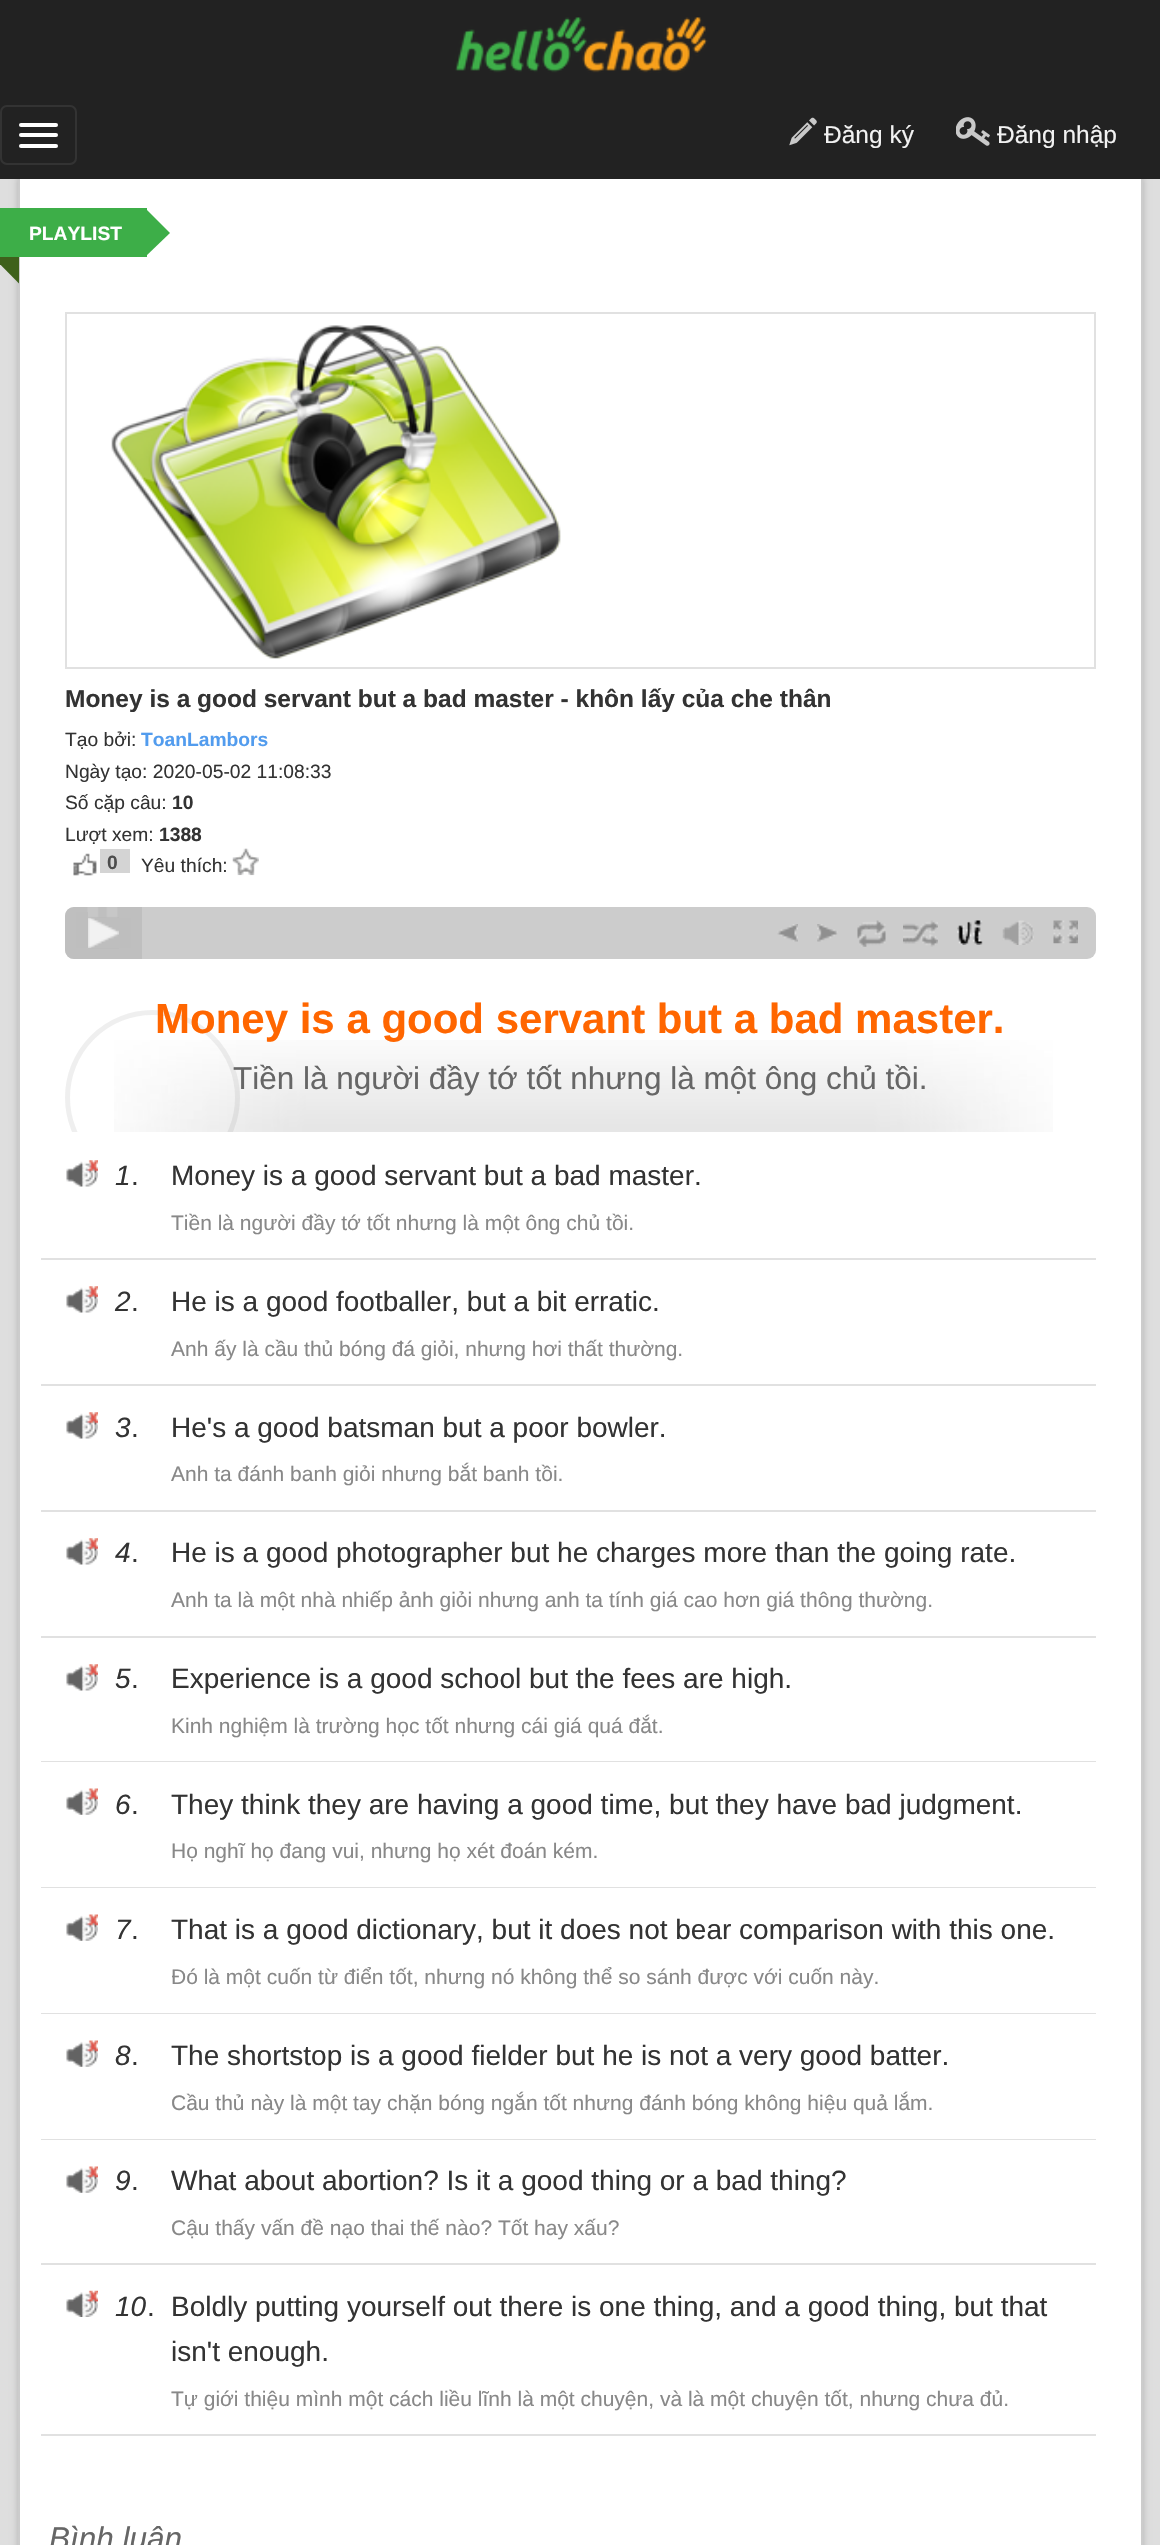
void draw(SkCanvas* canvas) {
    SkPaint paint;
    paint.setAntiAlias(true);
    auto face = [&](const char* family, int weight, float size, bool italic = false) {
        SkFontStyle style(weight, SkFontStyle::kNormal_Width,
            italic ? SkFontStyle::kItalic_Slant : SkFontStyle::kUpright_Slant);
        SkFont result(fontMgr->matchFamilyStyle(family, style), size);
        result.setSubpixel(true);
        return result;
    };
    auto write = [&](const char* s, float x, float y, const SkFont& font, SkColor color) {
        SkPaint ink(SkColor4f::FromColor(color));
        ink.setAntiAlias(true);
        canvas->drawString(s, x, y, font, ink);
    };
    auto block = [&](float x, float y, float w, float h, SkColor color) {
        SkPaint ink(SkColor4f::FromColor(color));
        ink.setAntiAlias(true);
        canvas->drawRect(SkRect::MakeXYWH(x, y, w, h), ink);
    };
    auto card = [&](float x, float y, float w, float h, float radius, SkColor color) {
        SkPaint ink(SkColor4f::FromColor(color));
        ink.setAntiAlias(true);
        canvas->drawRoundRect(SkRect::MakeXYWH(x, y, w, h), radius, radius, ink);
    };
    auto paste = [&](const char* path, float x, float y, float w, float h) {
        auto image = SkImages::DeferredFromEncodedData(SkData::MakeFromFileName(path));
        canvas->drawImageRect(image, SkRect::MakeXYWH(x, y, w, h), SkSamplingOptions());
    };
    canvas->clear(SkColorSetRGB(222, 222, 222));
    paint.setColor(SkColorSetARGB(51, 0, 0, 0));
    paint.setMaskFilter(SkMaskFilter::MakeBlur(kNormal_SkBlurStyle, 3.5f));
    canvas->drawRect(SkRect::MakeXYWH(18, 177, 1125, 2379), paint);
    paint.setMaskFilter(nullptr);
    block(20, 179, 1121, 2366, SK_ColorWHITE);
    paint.setStyle(SkPaint::kStroke_Style);
    paint.setStrokeWidth(2);
    paint.setColor(SkColorSetRGB(204, 204, 204));
    canvas->drawRect(SkRect::MakeXYWH(19, 176, 1123, 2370), paint);
    block(0, 0, 1160, 179, SkColorSetRGB(34, 34, 34));
    paste("pic1.png", 455, 17, 253, 56);
    paint.setColor(SkColorSetRGB(51, 51, 51));
    canvas->drawRoundRect(SkRect::MakeXYWH(1, 106, 75, 58), 6, 6, paint);
    card(19, 123, 39, 4, 2, SK_ColorWHITE);
    card(19, 133, 39, 4, 2, SK_ColorWHITE);
    card(19, 144, 39, 4, 2, SK_ColorWHITE);
    paste("pic2.png", 789, 117, 28, 29);
    auto kFont1 = face("Liberation Sans", 400, 24.5f);
    write("Đăng ký", 824, 143, kFont1, SkColorSetRGB(242, 242, 242));
    paste("pic3.png", 956, 117, 34, 29);
    write("Đăng nhập", 997, 143, kFont1, SkColorSetRGB(242, 242, 242));
    block(0, 208, 147, 49, SkColorSetRGB(61, 174, 72));
    auto kFont2 = face("Liberation Sans", 700, 19.25f);
    write("PLAYLIST", 29, 240, kFont2, SK_ColorWHITE);
    paint.setStyle(SkPaint::kFill_Style);
    paint.setColor(SkColorSetRGB(61, 174, 72));
    canvas->drawPath(SkPathBuilder().moveTo(145, 257).lineTo(145, 208).lineTo(170, 233).close().detach(), paint);
    paint.setColor(SkColorSetRGB(62, 97, 27));
    canvas->drawPath(SkPathBuilder().moveTo(-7, 257).lineTo(19, 257).lineTo(19, 283.5f).close().detach(), paint);
    paint.setStyle(SkPaint::kStroke_Style);
    paint.setColor(SkColorSetRGB(225, 225, 225));
    canvas->drawRect(SkRect::MakeXYWH(66, 313, 1029, 355), paint);
    paste("pic4.png", 111, 325, 450, 334);
    auto kFont3 = face("Liberation Sans", 700, 24.5f);
    write("Money is a good servant but a bad master - khôn lấy của che thân", 65, 707, kFont3, SkColorSetRGB(51, 51, 51));
    auto kFont4 = face("Liberation Sans", 400, 19.25f);
    write("Tạo bởi:", 65, 746, kFont4, SkColorSetRGB(51, 51, 51));
    write("ToanLambors", 141, 746, kFont2, SkColorSetRGB(82, 156, 238));
    write("Ngày tạo: 2020-05-02 11:08:33", 65, 778, kFont4, SkColorSetRGB(51, 51, 51));
    write("Số cặp câu:", 65, 809, kFont4, SkColorSetRGB(51, 51, 51));
    write("10", 172, 809, kFont2, SkColorSetRGB(51, 51, 51));
    write("Lượt xem:", 65, 841, kFont4, SkColorSetRGB(51, 51, 51));
    write("1388", 159, 841, kFont2, SkColorSetRGB(51, 51, 51));
    paste("pic5.png", 73, 853, 24, 23);
    block(100, 849, 30, 24, SkColorSetRGB(212, 212, 212));
    write("0", 107, 869, kFont2, SkColorSetRGB(77, 77, 77));
    write("Yêu thích:", 141, 872, kFont4, SkColorSetRGB(51, 51, 51));
    paste("pic6.png", 232, 848, 27, 27);
    paste("pic7.png", 233, 848, 26, 28);
    card(65, 907, 1031, 52, 9, SkColorSetRGB(204, 204, 204));
    block(88, 917, 31, 32, SkColorSetRGB(190, 190, 190));
    paste("pic8.png", 87, 907, 32, 42);
    paint.setStrokeWidth(11);
    paint.setColor(SkColorSetARGB(204, 187, 187, 187));
    canvas->drawPath(SkPathBuilder().moveTo(74, 912.5f).lineTo(136.5f, 912.5f).lineTo(136.5f, 953.5f).lineTo(74, 953.5f).cubicTo(72, 953.5f, 70.5f, 952, 70.5f, 950).lineTo(70.5f, 916).cubicTo(70.5f, 914, 72, 912.5f, 74, 912.5f).close().detach(), paint);
    block(119, 918, 12, 30, SkColorSetRGB(190, 190, 190));
    block(76, 912, 12, 36, SkColorSetRGB(190, 190, 190));
    paste("pic9.png", 777, 924, 21, 18);
    paste("pic10.png", 817, 924, 21, 18);
    paste("pic11.png", 857, 920, 29, 27);
    paste("pic12.png", 903, 920, 35, 27);
    paste("pic13.png", 957, 920, 26, 25);
    paste("pic14.png", 1002, 920, 32, 25);
    paste("pic15.png", 1053, 920, 25, 24);
    paste("pic16.png", 114, 1040, 939, 92);
    canvas->save();
    canvas->clipRect(SkRect::MakeXYWH(65, 959, 1031, 173));
    paint.setStrokeWidth(5);
    paint.setColor(SkColorSetARGB(26, 102, 102, 102));
    canvas->drawCircle(152.5f, 1097.5f, 85, paint);
    canvas->restore();
    auto kFont5 = face("Liberation Sans", 700, 42);
    write("Money is a good servant but a bad master.", 155, 1033, kFont5, SkColorSetRGB(255, 102, 0));
    auto kFont6 = face("Liberation Sans", 400, 31.5f);
    write("Tiền là người đầy tớ tốt nhưng là một ông chủ tồi.", 233, 1089, kFont6, SkColorSetRGB(102, 102, 102));
    block(39, 1258, 1057, 2, SkColorSetRGB(225, 225, 225));
    block(39, 1258, 2, 2, SK_ColorWHITE);
    paste("pic17.png", 66, 1160, 32, 27);
    auto kFont7 = face("Liberation Sans", 400, 28, true);
    write("1", 115, 1185, kFont7, SkColorSetRGB(51, 51, 51));
    auto kFont8 = face("Liberation Sans", 400, 28);
    write(".", 131, 1185, kFont8, SkColorSetRGB(51, 51, 51));
    write("Money is a good servant but a bad master.", 171, 1185, kFont8, SkColorSetRGB(51, 51, 51));
    auto kFont9 = face("Liberation Sans", 400, 21);
    write("Tiền là người đầy tớ tốt nhưng là một ông chủ tồi.", 171, 1230, kFont9, SkColorSetRGB(136, 136, 136));
    block(39, 1384, 1057, 2, SkColorSetRGB(225, 225, 225));
    block(39, 1384, 2, 2, SK_ColorWHITE);
    paste("pic17.png", 66, 1286, 32, 27);
    write("2", 115, 1311, kFont7, SkColorSetRGB(51, 51, 51));
    write(".", 131, 1311, kFont8, SkColorSetRGB(51, 51, 51));
    write("He is a good footballer, but a bit erratic.", 171, 1311, kFont8, SkColorSetRGB(51, 51, 51));
    write("Anh ấy là cầu thủ bóng đá giỏi, nhưng hơi thất thường.", 171, 1356, kFont9, SkColorSetRGB(136, 136, 136));
    block(39, 1510, 1057, 2, SkColorSetRGB(225, 225, 225));
    block(39, 1510, 2, 2, SK_ColorWHITE);
    paste("pic17.png", 66, 1412, 32, 27);
    write("3", 115, 1437, kFont7, SkColorSetRGB(51, 51, 51));
    write(".", 131, 1437, kFont8, SkColorSetRGB(51, 51, 51));
    write("He's a good batsman but a poor bowler.", 171, 1437, kFont8, SkColorSetRGB(51, 51, 51));
    write("Anh ta đánh banh giỏi nhưng bắt banh tồi.", 171, 1481, kFont9, SkColorSetRGB(136, 136, 136));
    block(39, 1636, 1057, 2, SkColorSetRGB(225, 225, 225));
    block(39, 1636, 2, 2, SK_ColorWHITE);
    paste("pic17.png", 66, 1538, 32, 27);
    write("4", 115, 1562, kFont7, SkColorSetRGB(51, 51, 51));
    write(".", 131, 1562, kFont8, SkColorSetRGB(51, 51, 51));
    write("He is a good photographer but he charges more than the going rate.", 171, 1562, kFont8, SkColorSetRGB(51, 51, 51));
    write("Anh ta là một nhà nhiếp ảnh giỏi nhưng anh ta tính giá cao hơn giá thông thường.", 171, 1607, kFont9, SkColorSetRGB(136, 136, 136));
    block(39, 1761, 1057, 1, SkColorSetRGB(225, 225, 225));
    block(39, 1761, 2, 1, SK_ColorWHITE);
    paste("pic17.png", 66, 1664, 32, 27);
    write("5", 115, 1688, kFont7, SkColorSetRGB(51, 51, 51));
    write(".", 131, 1688, kFont8, SkColorSetRGB(51, 51, 51));
    write("Experience is a good school but the fees are high.", 171, 1688, kFont8, SkColorSetRGB(51, 51, 51));
    write("Kinh nghiệm là trường học tốt nhưng cái giá quá đắt.", 171, 1733, kFont9, SkColorSetRGB(136, 136, 136));
    block(39, 1887, 1057, 1, SkColorSetRGB(225, 225, 225));
    block(39, 1887, 2, 1, SK_ColorWHITE);
    paste("pic18.png", 66, 1788, 32, 27);
    write("6", 115, 1814, kFont7, SkColorSetRGB(51, 51, 51));
    write(".", 131, 1814, kFont8, SkColorSetRGB(51, 51, 51));
    write("They think they are having a good time, but they have bad judgment.", 171, 1814, kFont8, SkColorSetRGB(51, 51, 51));
    write("Họ nghĩ họ đang vui, nhưng họ xét đoán kém.", 171, 1858, kFont9, SkColorSetRGB(136, 136, 136));
    block(39, 2013, 1057, 1, SkColorSetRGB(225, 225, 225));
    block(39, 2013, 2, 1, SK_ColorWHITE);
    paste("pic19.png", 66, 1914, 32, 27);
    write("7", 115, 1939, kFont7, SkColorSetRGB(51, 51, 51));
    write(".", 131, 1939, kFont8, SkColorSetRGB(51, 51, 51));
    write("That is a good dictionary, but it does not bear comparison with this one.", 171, 1939, kFont8, SkColorSetRGB(51, 51, 51));
    canvas->save();
    canvas->clipRect(SkRect::MakeXYWH(172, 1962, 924, 33));
    write("Đó là một cuốn từ điển tốt, nhưng nó không thể so sánh được với cuốn này.", 171, 1984, kFont9, SkColorSetRGB(136, 136, 136));
    canvas->restore();
    block(39, 2139, 1057, 1, SkColorSetRGB(225, 225, 225));
    block(39, 2139, 2, 1, SK_ColorWHITE);
    paste("pic19.png", 66, 2040, 32, 27);
    write("8", 115, 2065, kFont7, SkColorSetRGB(51, 51, 51));
    write(".", 131, 2065, kFont8, SkColorSetRGB(51, 51, 51));
    write("The shortstop is a good fielder but he is not a very good batter.", 171, 2065, kFont8, SkColorSetRGB(51, 51, 51));
    write("Cầu thủ này là một tay chặn bóng ngắn tốt nhưng đánh bóng không hiệu quả lắm.", 171, 2110, kFont9, SkColorSetRGB(136, 136, 136));
    block(39, 2263, 1057, 2, SkColorSetRGB(225, 225, 225));
    block(39, 2263, 2, 2, SK_ColorWHITE);
    paste("pic19.png", 66, 2166, 32, 27);
    write("9", 115, 2190, kFont7, SkColorSetRGB(51, 51, 51));
    write(".", 131, 2190, kFont8, SkColorSetRGB(51, 51, 51));
    write("What about abortion? Is it a good thing or a bad thing?", 171, 2190, kFont8, SkColorSetRGB(51, 51, 51));
    write("Cậu thấy vấn đề nạo thai thế nào? Tốt hay xấu?", 171, 2235, kFont9, SkColorSetRGB(136, 136, 136));
    block(39, 2434, 1057, 2, SkColorSetRGB(225, 225, 225));
    block(39, 2434, 2, 2, SK_ColorWHITE);
    paste("pic20.png", 66, 2290, 32, 27);
    write("10", 115, 2316, kFont7, SkColorSetRGB(51, 51, 51));
    write(".", 147, 2316, kFont8, SkColorSetRGB(51, 51, 51));
    write("Boldly putting yourself out there is one thing, and a good thing, but that", 171, 2316, kFont8, SkColorSetRGB(51, 51, 51));
    write("isn't enough.", 171, 2361, kFont8, SkColorSetRGB(51, 51, 51));
    write("Tự giới thiệu mình một cách liều lĩnh là một chuyện, và là một chuyện tốt, nhưng chưa đủ.", 171, 2406, kFont9, SkColorSetRGB(136, 136, 136));
    auto kFont10 = face("Liberation Sans", 400, 31.5f, true);
    write("Bình luận", 49, 2549, kFont10, SkColorSetRGB(102, 102, 102));
}
